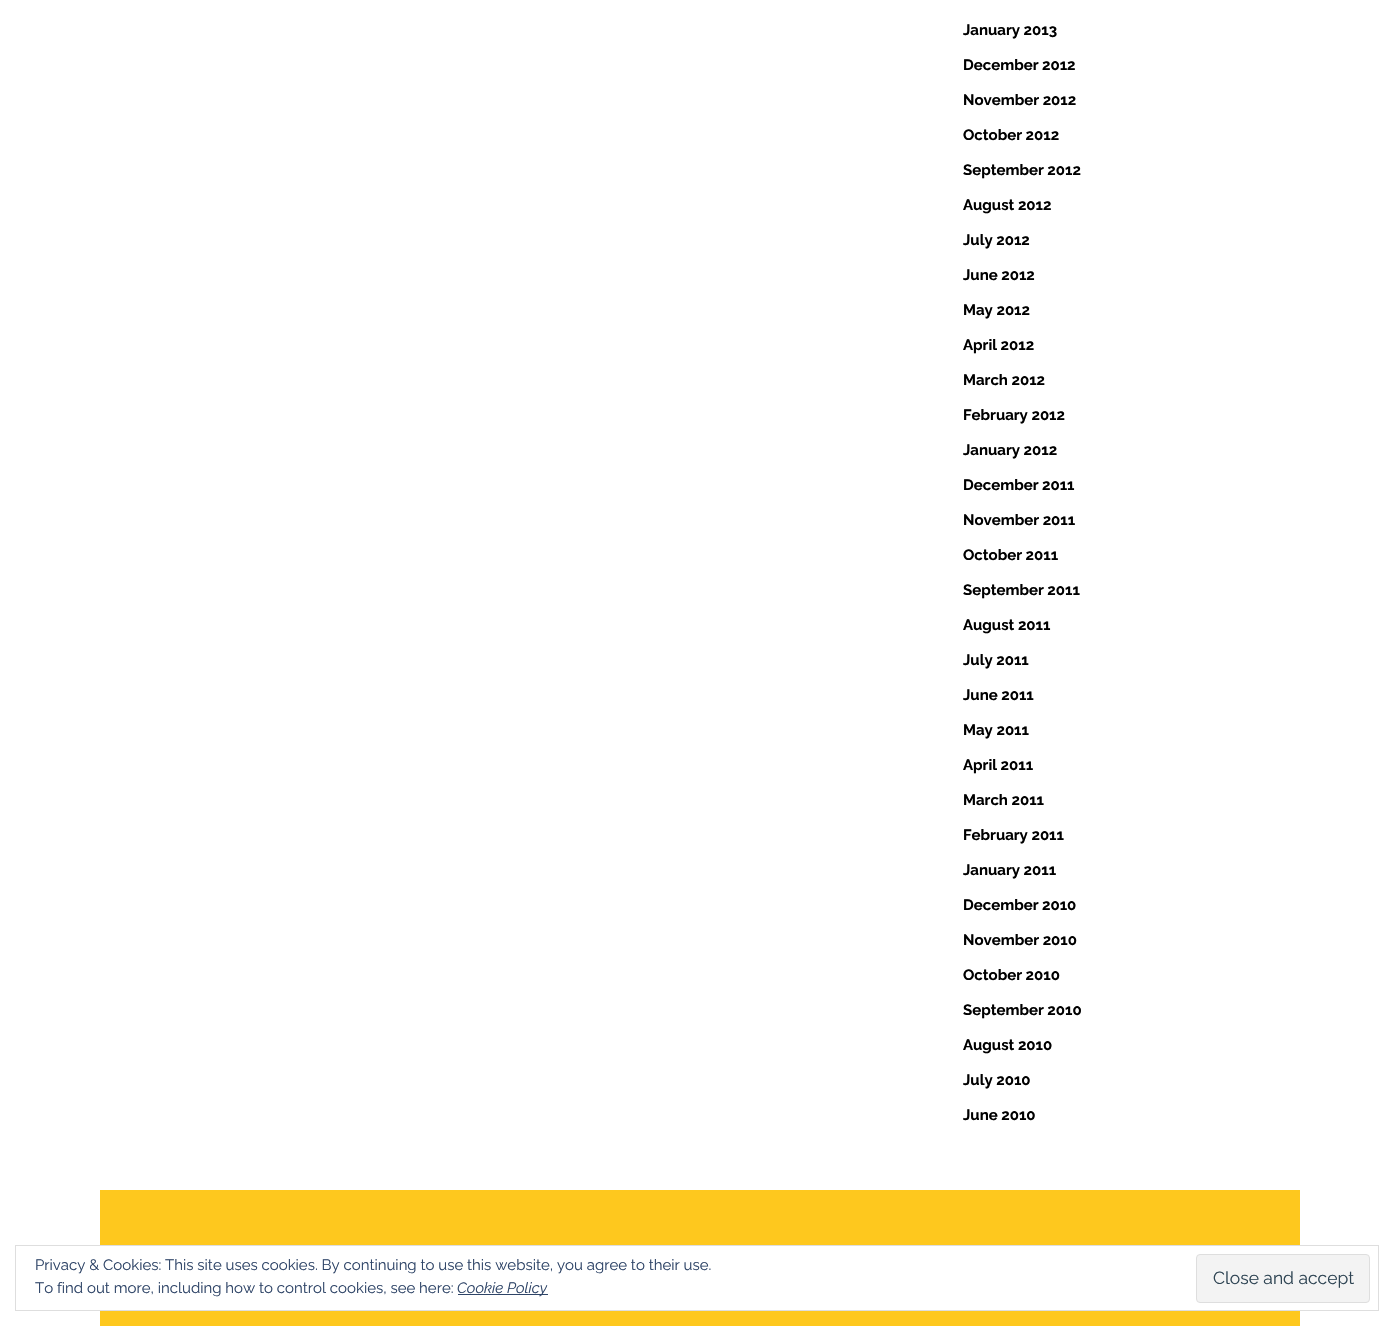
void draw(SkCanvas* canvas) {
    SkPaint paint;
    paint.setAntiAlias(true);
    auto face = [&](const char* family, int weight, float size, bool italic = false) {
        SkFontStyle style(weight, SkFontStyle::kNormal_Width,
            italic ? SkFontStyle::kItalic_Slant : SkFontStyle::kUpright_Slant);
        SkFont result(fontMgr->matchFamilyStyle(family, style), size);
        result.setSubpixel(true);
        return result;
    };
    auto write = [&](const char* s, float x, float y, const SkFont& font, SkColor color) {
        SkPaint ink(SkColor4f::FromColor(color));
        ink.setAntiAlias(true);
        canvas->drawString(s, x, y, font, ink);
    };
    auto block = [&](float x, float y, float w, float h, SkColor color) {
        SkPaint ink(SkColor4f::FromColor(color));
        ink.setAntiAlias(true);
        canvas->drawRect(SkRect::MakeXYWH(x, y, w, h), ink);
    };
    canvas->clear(SK_ColorWHITE);
    auto kFont1 = face("Raleway", 700, 15);
    write("January 2013", 963, 35, kFont1, SK_ColorBLACK);
    write("December 2012", 963, 70, kFont1, SK_ColorBLACK);
    write("November 2012", 963, 105, kFont1, SK_ColorBLACK);
    write("October 2012", 963, 140, kFont1, SK_ColorBLACK);
    write("September 2012", 963, 175, kFont1, SK_ColorBLACK);
    write("August 2012", 963, 210, kFont1, SK_ColorBLACK);
    write("July 2012", 963, 245, kFont1, SK_ColorBLACK);
    write("June 2012", 963, 280, kFont1, SK_ColorBLACK);
    write("May 2012", 963, 315, kFont1, SK_ColorBLACK);
    write("April 2012", 963, 350, kFont1, SK_ColorBLACK);
    write("March 2012", 963, 385, kFont1, SK_ColorBLACK);
    write("February 2012", 963, 420, kFont1, SK_ColorBLACK);
    write("January 2012", 963, 455, kFont1, SK_ColorBLACK);
    write("December 2011", 963, 490, kFont1, SK_ColorBLACK);
    write("November 2011", 963, 525, kFont1, SK_ColorBLACK);
    write("October 2011", 963, 560, kFont1, SK_ColorBLACK);
    write("September 2011", 963, 595, kFont1, SK_ColorBLACK);
    write("August 2011", 963, 630, kFont1, SK_ColorBLACK);
    write("July 2011", 963, 665, kFont1, SK_ColorBLACK);
    write("June 2011", 963, 700, kFont1, SK_ColorBLACK);
    write("May 2011", 963, 735, kFont1, SK_ColorBLACK);
    write("April 2011", 963, 770, kFont1, SK_ColorBLACK);
    write("March 2011", 963, 805, kFont1, SK_ColorBLACK);
    write("February 2011", 963, 840, kFont1, SK_ColorBLACK);
    write("January 2011", 963, 875, kFont1, SK_ColorBLACK);
    write("December 2010", 963, 910, kFont1, SK_ColorBLACK);
    write("November 2010", 963, 945, kFont1, SK_ColorBLACK);
    write("October 2010", 963, 980, kFont1, SK_ColorBLACK);
    write("September 2010", 963, 1015, kFont1, SK_ColorBLACK);
    write("August 2010", 963, 1050, kFont1, SK_ColorBLACK);
    write("July 2010", 963, 1085, kFont1, SK_ColorBLACK);
    write("June 2010", 963, 1120, kFont1, SK_ColorBLACK);
    block(100, 1190, 1200, 55, SkColorSetRGB(254, 200, 30));
    block(100, 1311, 1200, 15, SkColorSetRGB(254, 200, 30));
    paint.setStyle(SkPaint::kStroke_Style);
    paint.setStrokeWidth(1);
    paint.setColor(SkColorSetRGB(222, 222, 222));
    canvas->drawRect(SkRect::MakeXYWH(15.5f, 1245.5f, 1363, 65), paint);
    auto kFont2 = face("Raleway", 400, 15);
    write("Privacy & Cookies: This site uses cookies. By continuing to use this website, you agree to their use.", 35, 1270, kFont2, SkColorSetRGB(46, 68, 103));
    write("To find out more, including how to control cookies, see here:", 35, 1293, kFont2, SkColorSetRGB(46, 68, 103));
    block(458, 1294, 90, 1, SkColorSetRGB(46, 68, 103));
    auto kFont3 = face("Raleway", 400, 15, true);
    write("Cookie Policy", 457, 1293, kFont3, SkColorSetRGB(46, 68, 103));
    paint.setStyle(SkPaint::kFill_Style);
    paint.setColor(SkColorSetRGB(243, 243, 243));
    canvas->drawRoundRect(SkRect::MakeXYWH(1196.5f, 1254.5f, 173, 48), 3.5f, 3.5f, paint);
    paint.setStyle(SkPaint::kStroke_Style);
    paint.setColor(SkColorSetRGB(222, 222, 222));
    canvas->drawRoundRect(SkRect::MakeXYWH(1196.5f, 1254.5f, 173, 48), 3.5f, 3.5f, paint);
    auto kFont4 = face("Raleway", 400, 17.5f);
    write("Close and accept", 1213, 1284, kFont4, SkColorSetRGB(46, 68, 83));
}
